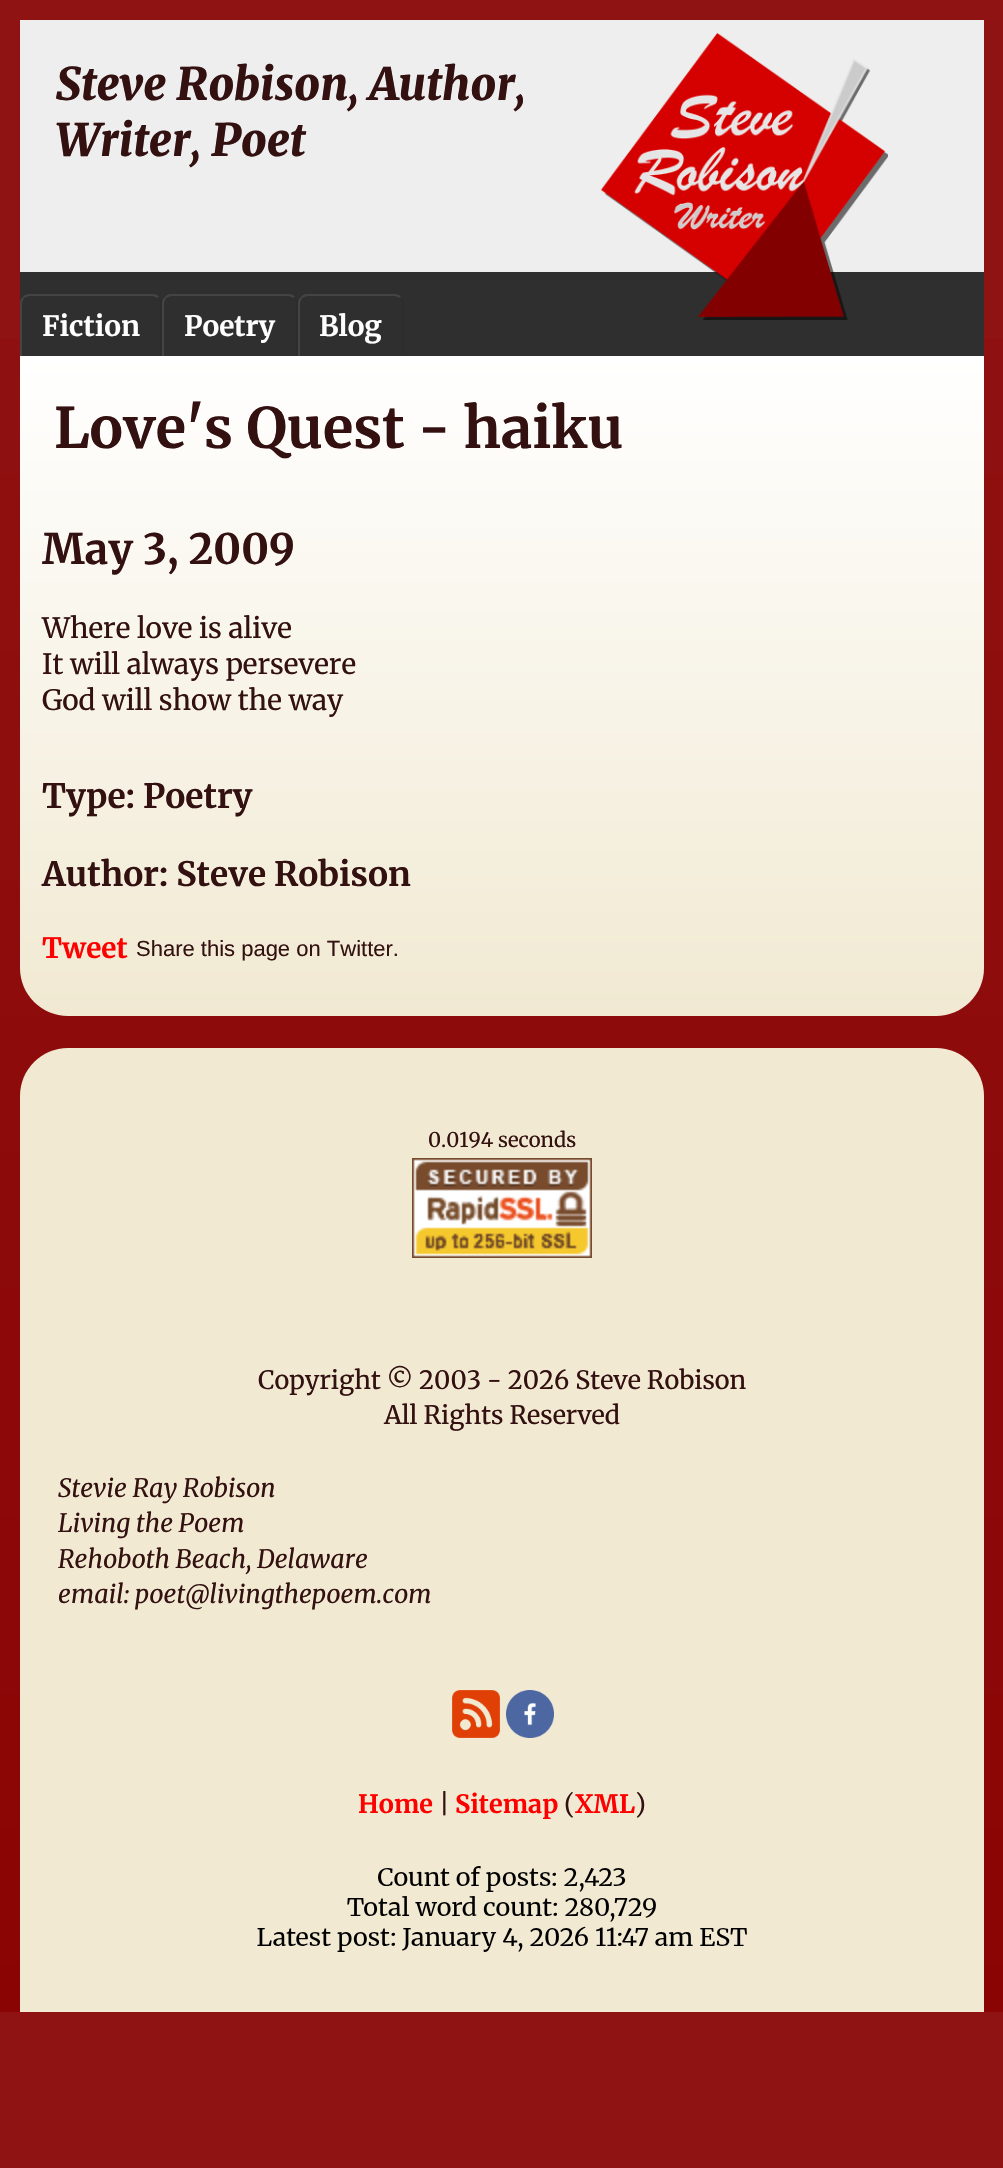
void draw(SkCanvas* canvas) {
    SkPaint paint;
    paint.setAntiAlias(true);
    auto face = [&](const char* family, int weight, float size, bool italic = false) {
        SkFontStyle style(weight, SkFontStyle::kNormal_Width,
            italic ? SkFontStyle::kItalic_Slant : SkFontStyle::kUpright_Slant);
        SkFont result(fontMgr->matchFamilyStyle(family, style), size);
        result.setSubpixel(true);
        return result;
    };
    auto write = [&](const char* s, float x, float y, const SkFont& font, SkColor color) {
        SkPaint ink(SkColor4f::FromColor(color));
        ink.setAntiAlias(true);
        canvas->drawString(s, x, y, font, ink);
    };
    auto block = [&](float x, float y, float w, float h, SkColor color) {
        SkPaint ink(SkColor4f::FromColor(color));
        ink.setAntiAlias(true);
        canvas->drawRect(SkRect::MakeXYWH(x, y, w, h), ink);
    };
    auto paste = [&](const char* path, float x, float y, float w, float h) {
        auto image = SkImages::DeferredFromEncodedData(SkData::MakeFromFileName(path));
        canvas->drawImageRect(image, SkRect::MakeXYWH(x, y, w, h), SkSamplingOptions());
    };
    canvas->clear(SkColorSetRGB(144, 19, 19));
    {
        const SkColor colors[] = {SkColorSetRGB(144, 19, 19), SkColorSetRGB(139, 3, 3)};
        const float stops[] = {0, 1};
        const SkPoint ends[] = {{502, 0}, {502, 2168}};
        paint.setShader(SkGradientShader::MakeLinear(ends, colors, stops, 2, SkTileMode::kClamp));
        paint.setAlpha(255);
    }
    canvas->drawRect(SkRect::MakeXYWH(0, 339, 1003, 1673), paint);
    block(20, 20, 964, 252, SkColorSetRGB(238, 238, 238));
    auto kFont1 = face("Merriweather", 900, 44.75f, true);
    write("Steve Robison, Author,", 56, 100, kFont1, SkColorSetRGB(51, 17, 17));
    write("Writer, Poet", 56, 156, kFont1, SkColorSetRGB(51, 17, 17));
    block(20, 272, 964, 84, SkColorSetRGB(47, 47, 47));
    paste("pic1.png", 600, 32, 288, 288);
    auto kFont2 = face("Merriweather", 700, 28);
    write("Fiction", 42, 336, kFont2, SK_ColorWHITE);
    paint.setShader(nullptr);
    paint.setColor(SkColorSetRGB(68, 68, 68));
    canvas->drawPath(SkPathBuilder().moveTo(30, 294).cubicTo(27, 294, 24, 295, 23, 297).lineTo(24, 298).cubicTo(26, 297, 28, 296, 30, 296).lineTo(152, 296).cubicTo(154, 296, 156, 297, 158, 298).lineTo(159, 297).cubicTo(158, 295, 155, 294, 152, 294).close().detach(), paint);
    paint.setColor(SkColorSetRGB(45, 45, 45));
    canvas->drawPath(SkPathBuilder().moveTo(160, 356).lineTo(162, 356).lineTo(162, 304).cubicTo(162, 301, 161, 298, 159, 297).lineTo(158, 298).cubicTo(159, 300, 160, 302, 160, 304).close().detach(), paint);
    paint.setColor(SkColorSetRGB(68, 68, 68));
    canvas->drawPath(SkPathBuilder().moveTo(20, 356).lineTo(22, 356).lineTo(22, 304).cubicTo(22, 302, 23, 300, 24, 298).lineTo(23, 297).cubicTo(21, 298, 20, 301, 20, 304).close().detach(), paint);
    write("Poetry", 184, 336, kFont2, SK_ColorWHITE);
    canvas->drawPath(SkPathBuilder().moveTo(172, 294).cubicTo(169, 294, 166, 295, 165, 297).lineTo(166, 298).cubicTo(168, 297, 170, 296, 172, 296).lineTo(288, 296).cubicTo(290, 296, 292, 297, 294, 298).lineTo(295, 297).cubicTo(294, 295, 291, 294, 288, 294).close().detach(), paint);
    paint.setColor(SkColorSetRGB(45, 45, 45));
    canvas->drawPath(SkPathBuilder().moveTo(296, 356).lineTo(298, 356).lineTo(298, 304).cubicTo(298, 301, 297, 298, 295, 297).lineTo(294, 298).cubicTo(295, 300, 296, 302, 296, 304).close().detach(), paint);
    paint.setColor(SkColorSetRGB(68, 68, 68));
    canvas->drawPath(SkPathBuilder().moveTo(162, 356).lineTo(164, 356).lineTo(164, 304).cubicTo(164, 302, 165, 300, 166, 298).lineTo(165, 297).cubicTo(163, 298, 162, 301, 162, 304).close().detach(), paint);
    write("Blog", 319, 336, kFont2, SK_ColorWHITE);
    canvas->drawPath(SkPathBuilder().moveTo(308, 294).cubicTo(305, 294, 302, 295, 301, 297).lineTo(302, 298).cubicTo(304, 297, 306, 296, 308, 296).lineTo(394, 296).cubicTo(396, 296, 398, 297, 400, 298).lineTo(401, 297).cubicTo(400, 295, 397, 294, 394, 294).close().detach(), paint);
    paint.setColor(SkColorSetRGB(45, 45, 45));
    canvas->drawPath(SkPathBuilder().moveTo(402, 356).lineTo(404, 356).lineTo(404, 304).cubicTo(404, 301, 403, 298, 401, 297).lineTo(400, 298).cubicTo(401, 300, 402, 302, 402, 304).close().detach(), paint);
    paint.setColor(SkColorSetRGB(68, 68, 68));
    canvas->drawPath(SkPathBuilder().moveTo(298, 356).lineTo(300, 356).lineTo(300, 304).cubicTo(300, 302, 301, 300, 302, 298).lineTo(301, 297).cubicTo(299, 298, 298, 301, 298, 304).close().detach(), paint);
    {
        const SkColor colors[] = {SK_ColorWHITE, SkColorSetRGB(241, 233, 210)};
        const float stops[] = {0, 1};
        const SkPoint ends[] = {{502, 356}, {502, 1016}};
        paint.setShader(SkGradientShader::MakeLinear(ends, colors, stops, 2, SkTileMode::kClamp));
        paint.setAlpha(255);
    }
    canvas->drawPath(SkPathBuilder().moveTo(20, 356).lineTo(984, 356).lineTo(984, 968).cubicTo(984, 994.5f, 962.5f, 1016, 936, 1016).lineTo(68, 1016).cubicTo(41.5f, 1016, 20, 994.5f, 20, 968).close().detach(), paint);
    auto kFont3 = face("Merriweather", 700, 56);
    write("Love's Quest - haiku", 54, 448, kFont3, SkColorSetRGB(51, 17, 17));
    auto kFont4 = face("Merriweather", 700, 42);
    write("May 3, 2009", 42, 564, kFont4, SkColorSetRGB(51, 17, 17));
    auto kFont5 = face("Merriweather", 400, 28);
    write("Where love is alive", 42, 638, kFont5, SkColorSetRGB(51, 17, 17));
    write("It will always persevere", 42, 674, kFont5, SkColorSetRGB(51, 17, 17));
    write("God will show the way", 42, 710, kFont5, SkColorSetRGB(51, 17, 17));
    auto kFont6 = face("Merriweather", 700, 33.6f);
    write("Type: Poetry", 42, 808, kFont6, SkColorSetRGB(51, 17, 17));
    write("Author: Steve Robison", 42, 886, kFont6, SkColorSetRGB(51, 17, 17));
    write("Tweet", 42, 958, kFont2, SkColorSetRGB(255, 0, 0));
    auto kFont7 = face("Liberation Sans", 400, 22);
    write("Share this page on Twitter.", 136, 956, kFont7, SkColorSetRGB(51, 17, 17));
    paint.setShader(nullptr);
    paint.setColor(SkColorSetRGB(241, 233, 210));
    canvas->drawPath(SkPathBuilder().moveTo(68, 1048).lineTo(936, 1048).cubicTo(962.5f, 1048, 984, 1069.5f, 984, 1096).lineTo(984, 2012).lineTo(20, 2012).lineTo(20, 1096).cubicTo(20, 1069.5f, 41.5f, 1048, 68, 1048).close().detach(), paint);
    auto kFont8 = face("Merriweather", 400, 20.25f);
    write("0.0194 seconds", 428, 1147, kFont8, SkColorSetRGB(51, 17, 17));
    paste("pic2.png", 412, 1158, 180, 100);
    auto kFont9 = face("Merriweather", 400, 25.25f);
    write("Copyright © 2003 - 2026 Steve Robison", 258, 1389, kFont9, SkColorSetRGB(51, 17, 17));
    write("All Rights Reserved", 384, 1424, kFont9, SkColorSetRGB(51, 17, 17));
    auto kFont10 = face("Merriweather", 400, 25.25f, true);
    write("Stevie Ray Robison", 58, 1497, kFont10, SkColorSetRGB(51, 17, 17));
    write("Living the Poem", 58, 1532, kFont10, SkColorSetRGB(51, 17, 17));
    write("Rehoboth Beach, Delaware", 58, 1568, kFont10, SkColorSetRGB(51, 17, 17));
    write("email: poet@livingthepoem.com", 58, 1603, kFont10, SkColorSetRGB(51, 17, 17));
    paste("pic3.png", 452, 1690, 48, 48);
    paste("pic4.png", 506, 1690, 48, 48);
    auto kFont11 = face("Merriweather", 700, 25.25f);
    write("Home", 358, 1813, kFont11, SkColorSetRGB(255, 0, 0));
    write("|", 439, 1813, kFont9, SkColorSetRGB(51, 17, 17));
    write("Sitemap", 455, 1813, kFont11, SkColorSetRGB(255, 0, 0));
    write("(", 564, 1813, kFont9, SkColorSetRGB(51, 17, 17));
    write("XML", 575, 1813, kFont11, SkColorSetRGB(255, 0, 0));
    write(")", 635, 1813, kFont9, SkColorSetRGB(51, 17, 17));
    paste("pic5.png", 257, 1866, 490, 86);
}
